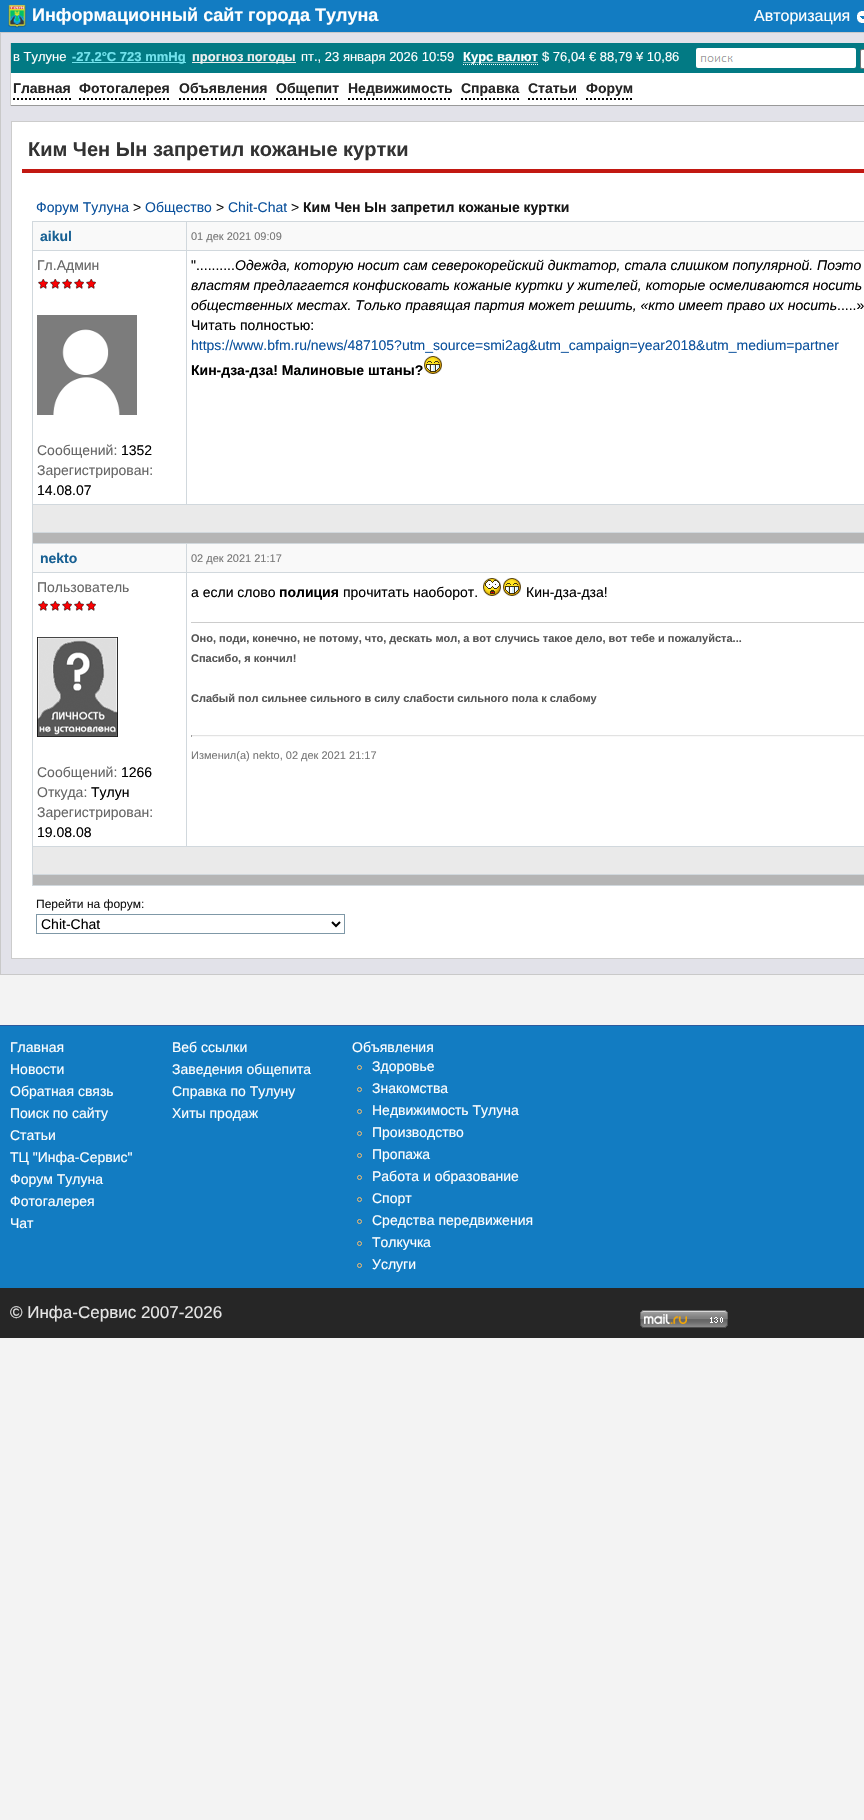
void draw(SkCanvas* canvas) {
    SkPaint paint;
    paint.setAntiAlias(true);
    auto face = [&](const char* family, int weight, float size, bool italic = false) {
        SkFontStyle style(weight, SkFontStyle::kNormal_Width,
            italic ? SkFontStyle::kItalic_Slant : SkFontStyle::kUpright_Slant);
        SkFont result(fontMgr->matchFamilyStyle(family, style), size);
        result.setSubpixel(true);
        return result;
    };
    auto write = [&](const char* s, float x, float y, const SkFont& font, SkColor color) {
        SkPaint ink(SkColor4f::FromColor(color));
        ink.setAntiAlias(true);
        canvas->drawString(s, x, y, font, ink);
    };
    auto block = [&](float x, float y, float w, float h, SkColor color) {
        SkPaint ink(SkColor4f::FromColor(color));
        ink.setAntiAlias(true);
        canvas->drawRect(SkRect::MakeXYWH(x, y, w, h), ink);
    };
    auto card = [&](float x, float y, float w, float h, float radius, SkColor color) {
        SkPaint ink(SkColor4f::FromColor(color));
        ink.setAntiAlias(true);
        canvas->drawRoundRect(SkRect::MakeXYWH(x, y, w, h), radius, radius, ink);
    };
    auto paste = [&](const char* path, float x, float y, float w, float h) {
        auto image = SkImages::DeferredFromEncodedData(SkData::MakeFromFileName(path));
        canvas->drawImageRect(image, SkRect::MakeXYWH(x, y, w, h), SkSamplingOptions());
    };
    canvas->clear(SkColorSetRGB(243, 243, 243));
    block(0, 0, 864, 32, SkColorSetRGB(18, 124, 194));
    paste("pic1.png", 8, 4, 19, 24);
    auto kFont1 = face("Liberation Sans", 700, 18);
    write("Информационный сайт города Тулуна", 32, 21, kFont1, SK_ColorWHITE);
    auto kFont2 = face("Liberation Sans", 400, 16);
    write("Авторизация", 754, 21, kFont2, SK_ColorWHITE);
    paste("pic2.png", 857, 11, 7, 12);
    paint.setColor(SkColorSetRGB(226, 226, 233));
    canvas->drawRect(SkRect::MakeXYWH(0.5f, 32.5f, 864, 942), paint);
    paint.setStyle(SkPaint::kStroke_Style);
    paint.setStrokeWidth(1);
    paint.setColor(SkColorSetRGB(201, 201, 201));
    canvas->drawRect(SkRect::MakeXYWH(0.5f, 32.5f, 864, 942), paint);
    block(11, 43, 853, 30, SkColorSetRGB(2, 122, 132));
    block(10, 43, 1, 30, SkColorSetRGB(204, 204, 204));
    auto kFont3 = face("Liberation Sans", 400, 13);
    write("в Тулуне", 13, 61, kFont3, SK_ColorWHITE);
    block(72, 62, 114, 1, SkColorSetRGB(114, 227, 237));
    auto kFont4 = face("Liberation Sans", 700, 13);
    write("-27,2°C 723 mmHg", 72, 61, kFont4, SkColorSetRGB(114, 227, 237));
    block(192, 62, 104, 1, SkColorSetRGB(239, 239, 239));
    write("прогноз погоды", 192, 61, kFont4, SkColorSetRGB(239, 239, 239));
    write("пт., 23 января 2026 10:59", 301, 61, kFont3, SK_ColorWHITE);
    paint.setColor(SK_ColorWHITE);
    paint.setPathEffect(SkDashPathEffect::Make({{1, 1}}, 0));
    canvas->drawPath(SkPathBuilder().moveTo(463.5f, 62.5f).lineTo(538, 62.5f).detach(), paint);
    paint.setPathEffect(nullptr);
    write("Курс валют", 463, 61, kFont4, SK_ColorWHITE);
    paint.setPathEffect(SkDashPathEffect::Make({{1, 1}}, 0));
    canvas->drawPath(SkPathBuilder().moveTo(463, 64.5f).lineTo(538, 64.5f).detach(), paint);
    paint.setPathEffect(nullptr);
    write("$ 76,04 € 88,79 ¥ 10,86", 542, 61, kFont3, SK_ColorWHITE);
    card(696, 48, 160, 20, 2, SK_ColorWHITE);
    paste("pic3.png", 700, 56, 33, 6);
    paint.setStyle(SkPaint::kFill_Style);
    canvas->drawRoundRect(SkRect::MakeXYWH(860.5f, 49.5f, 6, 19), 1.5f, 1.5f, paint);
    paint.setStyle(SkPaint::kStroke_Style);
    paint.setColor(SkColorSetRGB(118, 118, 118));
    canvas->drawRoundRect(SkRect::MakeXYWH(860.5f, 49.5f, 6, 19), 1.5f, 1.5f, paint);
    block(10, 105, 854, 1, SkColorSetRGB(153, 153, 153));
    block(10, 73, 1, 33, SkColorSetRGB(204, 204, 204));
    block(11, 73, 853, 32, SK_ColorWHITE);
    paint.setStrokeWidth(2);
    paint.setColor(SK_ColorBLACK);
    paint.setPathEffect(SkDashPathEffect::Make({{2, 2}}, 0));
    canvas->drawPath(SkPathBuilder().moveTo(13, 99).lineTo(71, 99).detach(), paint);
    paint.setPathEffect(nullptr);
    auto kFont5 = face("Liberation Sans", 700, 14);
    write("Главная", 13, 93, kFont5, SkColorSetRGB(37, 37, 37));
    paint.setPathEffect(SkDashPathEffect::Make({{2, 2}}, 0));
    canvas->drawPath(SkPathBuilder().moveTo(79, 99).lineTo(170, 99).detach(), paint);
    paint.setPathEffect(nullptr);
    write("Фотогалерея", 79, 93, kFont5, SkColorSetRGB(37, 37, 37));
    paint.setPathEffect(SkDashPathEffect::Make({{2, 2}}, 0));
    canvas->drawPath(SkPathBuilder().moveTo(179, 99).lineTo(267, 99).detach(), paint);
    paint.setPathEffect(nullptr);
    write("Объявления", 179, 93, kFont5, SkColorSetRGB(37, 37, 37));
    paint.setPathEffect(SkDashPathEffect::Make({{2, 2}}, 0));
    canvas->drawPath(SkPathBuilder().moveTo(276, 99).lineTo(339, 99).detach(), paint);
    paint.setPathEffect(nullptr);
    write("Общепит", 276, 93, kFont5, SkColorSetRGB(37, 37, 37));
    paint.setPathEffect(SkDashPathEffect::Make({{2, 2}}, 0));
    canvas->drawPath(SkPathBuilder().moveTo(348, 99).lineTo(452, 99).detach(), paint);
    paint.setPathEffect(nullptr);
    write("Недвижимость", 348, 93, kFont5, SkColorSetRGB(37, 37, 37));
    paint.setPathEffect(SkDashPathEffect::Make({{2, 2}}, 0));
    canvas->drawPath(SkPathBuilder().moveTo(461, 99).lineTo(520, 99).detach(), paint);
    paint.setPathEffect(nullptr);
    write("Справка", 461, 93, kFont5, SkColorSetRGB(37, 37, 37));
    paint.setPathEffect(SkDashPathEffect::Make({{2, 2}}, 0));
    canvas->drawPath(SkPathBuilder().moveTo(528, 99).lineTo(577, 99).detach(), paint);
    paint.setPathEffect(nullptr);
    write("Статьи", 528, 93, kFont5, SkColorSetRGB(37, 37, 37));
    paint.setPathEffect(SkDashPathEffect::Make({{2, 2}}, 0));
    canvas->drawPath(SkPathBuilder().moveTo(586, 99).lineTo(633, 99).detach(), paint);
    paint.setPathEffect(nullptr);
    write("Форум", 586, 93, kFont5, SkColorSetRGB(37, 37, 37));
    paint.setStyle(SkPaint::kFill_Style);
    paint.setColor(SK_ColorWHITE);
    canvas->drawRect(SkRect::MakeXYWH(11.5f, 121.5f, 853, 837), paint);
    paint.setStyle(SkPaint::kStroke_Style);
    paint.setStrokeWidth(1);
    paint.setColor(SkColorSetRGB(204, 204, 204));
    canvas->drawRect(SkRect::MakeXYWH(11.5f, 121.5f, 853, 837), paint);
    block(22, 169, 842, 4, SkColorSetRGB(194, 24, 18));
    auto kFont6 = face("Liberation Sans", 700, 20);
    write("Ким Чен Ын запретил кожаные куртки", 28, 156, kFont6, SkColorSetRGB(51, 51, 51));
    auto kFont7 = face("Liberation Sans", 400, 14);
    write("Форум Тулуна", 36, 212, kFont7, SkColorSetRGB(12, 82, 157));
    write(">", 133, 212, kFont7, SkColorSetRGB(21, 21, 21));
    write("Общество", 145, 212, kFont7, SkColorSetRGB(12, 82, 157));
    write(">", 216, 212, kFont7, SkColorSetRGB(21, 21, 21));
    write("Chit-Chat", 228, 212, kFont7, SkColorSetRGB(12, 82, 157));
    write(">", 291, 212, kFont7, SkColorSetRGB(21, 21, 21));
    write("Ким Чен Ын запретил кожаные куртки", 303, 212, kFont5, SkColorSetRGB(21, 21, 21));
    block(32, 221, 832, 665, SkColorSetRGB(209, 216, 221));
    block(33, 222, 153, 28, SkColorSetRGB(249, 249, 249));
    write("aikul", 40, 241, kFont5, SkColorSetRGB(23, 96, 147));
    block(187, 222, 677, 28, SkColorSetRGB(249, 249, 249));
    auto kFont8 = face("Liberation Sans", 400, 11);
    write("01 дек 2021 09:09", 191, 240, kFont8, SkColorSetRGB(119, 119, 119));
    block(33, 251, 153, 253, SK_ColorWHITE);
    write("Гл.Админ", 37, 270, kFont7, SkColorSetRGB(102, 102, 102));
    paste("pic4.png", 38, 279, 10, 10);
    paste("pic4.png", 50, 279, 10, 10);
    paste("pic4.png", 62, 279, 10, 10);
    paste("pic4.png", 74, 279, 10, 10);
    paste("pic4.png", 86, 279, 10, 10);
    paste("pic5.png", 37, 315, 100, 100);
    write("Сообщений:", 37, 455, kFont7, SkColorSetRGB(102, 102, 102));
    write("1352", 121, 455, kFont7, SK_ColorBLACK);
    write("Зарегистрирован:", 37, 475, kFont7, SkColorSetRGB(102, 102, 102));
    write("14.08.07", 37, 495, kFont7, SK_ColorBLACK);
    block(187, 251, 677, 253, SK_ColorWHITE);
    write("\"..........", 191, 270, kFont7, SK_ColorBLACK);
    auto kFont9 = face("Liberation Sans", 400, 14, true);
    write("Одежда, которую носит сам северокорейский диктатор, стала слишком популярной. Поэто", 235, 270, kFont9, SK_ColorBLACK);
    write("властям предлагается конфисковать кожаные куртки у жителей, которые осмеливаются носить", 191, 290, kFont9, SK_ColorBLACK);
    write("общественных местах. Только правящая партия может решить, «кто имеет право их носить", 191, 310, kFont9, SK_ColorBLACK);
    write(".....»", 837, 310, kFont7, SK_ColorBLACK);
    write("Читать полностью:", 191, 330, kFont7, SK_ColorBLACK);
    write("https://www.bfm.ru/news/487105?utm_source=smi2ag&utm_campaign=year2018&utm_medium=partner", 191, 350, kFont7, SkColorSetRGB(12, 82, 157));
    write("Кин-дза-дза! Малиновые штаны?", 191, 375, kFont5, SK_ColorBLACK);
    paste("pic6.png", 424, 356, 18, 18);
    block(33, 505, 831, 27, SkColorSetRGB(234, 234, 234));
    block(33, 533, 831, 10, SkColorSetRGB(181, 181, 181));
    block(33, 544, 153, 28, SkColorSetRGB(249, 249, 249));
    write("nekto", 40, 563, kFont5, SkColorSetRGB(23, 96, 147));
    block(187, 544, 677, 28, SkColorSetRGB(249, 249, 249));
    write("02 дек 2021 21:17", 191, 562, kFont8, SkColorSetRGB(119, 119, 119));
    block(33, 573, 153, 273, SK_ColorWHITE);
    write("Пользователь", 37, 592, kFont7, SkColorSetRGB(102, 102, 102));
    paste("pic4.png", 38, 601, 10, 10);
    paste("pic4.png", 50, 601, 10, 10);
    paste("pic4.png", 62, 601, 10, 10);
    paste("pic4.png", 74, 601, 10, 10);
    paste("pic4.png", 86, 601, 10, 10);
    paste("pic7.png", 37, 637, 81, 100);
    write("Сообщений:", 37, 777, kFont7, SkColorSetRGB(102, 102, 102));
    write("1266", 121, 777, kFont7, SK_ColorBLACK);
    write("Откуда:", 37, 797, kFont7, SkColorSetRGB(102, 102, 102));
    write("Тулун", 91, 797, kFont7, SK_ColorBLACK);
    write("Зарегистрирован:", 37, 817, kFont7, SkColorSetRGB(102, 102, 102));
    write("19.08.08", 37, 837, kFont7, SK_ColorBLACK);
    block(187, 573, 677, 273, SK_ColorWHITE);
    write("а если слово", 191, 597, kFont7, SK_ColorBLACK);
    write("полиция", 279, 597, kFont5, SK_ColorBLACK);
    write("прочитать наоборот.", 343, 597, kFont7, SK_ColorBLACK);
    paste("pic8.png", 483, 578, 18, 18);
    paste("pic6.png", 503, 578, 18, 18);
    write("Кин-дза-дза!", 526, 597, kFont7, SK_ColorBLACK);
    block(191, 622, 673, 1, SkColorSetRGB(204, 204, 204));
    auto kFont10 = face("Liberation Sans", 700, 11);
    write("Оно, поди, конечно, не потому, что, дескать мол, а вот случись такое дело, вот тебе и пожалуйста...", 191, 642, kFont10, SkColorSetRGB(85, 85, 85));
    write("Спасибо, я кончил!", 191, 662, kFont10, SkColorSetRGB(85, 85, 85));
    write("Cлабый пол сильнее сильного в силу слабости сильного пола к слабому", 191, 702, kFont10, SkColorSetRGB(85, 85, 85));
    block(191, 735, 673, 1, SkColorSetRGB(226, 226, 226));
    block(191, 736, 673, 1, SkColorSetRGB(249, 249, 249));
    block(191, 735, 1, 2, SkColorSetRGB(159, 159, 159));
    write("Изменил(а) nekto, 02 дек 2021 21:17", 191, 759, kFont8, SkColorSetRGB(119, 119, 119));
    block(33, 847, 831, 27, SkColorSetRGB(234, 234, 234));
    block(33, 875, 831, 10, SkColorSetRGB(181, 181, 181));
    auto kFont11 = face("Liberation Sans", 400, 12);
    write("Перейти на форум:", 36, 908, kFont11, SkColorSetRGB(21, 21, 21));
    paint.setColor(SkColorSetRGB(127, 152, 167));
    canvas->drawRect(SkRect::MakeXYWH(36.5f, 914.5f, 308, 19), paint);
    paint.setStrokeWidth(2);
    paint.setColor(SK_ColorBLACK);
    canvas->drawPath(SkPathBuilder().moveTo(332, 922).lineTo(336, 926).lineTo(340, 922).detach(), paint);
    write("Chit-Chat", 41, 929, kFont7, SK_ColorBLACK);
    block(0, 1026, 864, 262, SkColorSetRGB(18, 124, 194));
    block(0, 1025, 864, 1, SkColorSetRGB(45, 89, 156));
    write("Главная", 10, 1052, kFont7, SK_ColorWHITE);
    write("Новости", 10, 1074, kFont7, SK_ColorWHITE);
    write("Обратная связь", 10, 1096, kFont7, SK_ColorWHITE);
    write("Поиск по сайту", 10, 1118, kFont7, SK_ColorWHITE);
    write("Статьи", 10, 1140, kFont7, SK_ColorWHITE);
    write("ТЦ \"Инфа-Сервис\"", 10, 1162, kFont7, SK_ColorWHITE);
    write("Форум Тулуна", 10, 1184, kFont7, SK_ColorWHITE);
    write("Фотогалерея", 10, 1206, kFont7, SK_ColorWHITE);
    write("Чат", 10, 1228, kFont7, SK_ColorWHITE);
    write("Веб ссылки", 172, 1052, kFont7, SK_ColorWHITE);
    write("Заведения общепита", 172, 1074, kFont7, SK_ColorWHITE);
    write("Справка по Тулуну", 172, 1096, kFont7, SK_ColorWHITE);
    write("Хиты продаж", 172, 1118, kFont7, SK_ColorWHITE);
    write("Объявления", 352, 1052, kFont7, SK_ColorWHITE);
    paint.setStrokeWidth(1);
    paint.setColor(SkColorSetRGB(249, 188, 109));
    canvas->drawCircle(359.5f, 1067.5f, 2, paint);
    write("Здоровье", 372, 1071, kFont7, SK_ColorWHITE);
    canvas->drawCircle(359.5f, 1089.5f, 2, paint);
    write("Знакомства", 372, 1093, kFont7, SK_ColorWHITE);
    canvas->drawCircle(359.5f, 1111.5f, 2, paint);
    write("Недвижимость Тулуна", 372, 1115, kFont7, SK_ColorWHITE);
    canvas->drawCircle(359.5f, 1133.5f, 2, paint);
    write("Производство", 372, 1137, kFont7, SK_ColorWHITE);
    canvas->drawCircle(359.5f, 1155.5f, 2, paint);
    write("Пропажа", 372, 1159, kFont7, SK_ColorWHITE);
    canvas->drawCircle(359.5f, 1177.5f, 2, paint);
    write("Работа и образование", 372, 1181, kFont7, SK_ColorWHITE);
    canvas->drawCircle(359.5f, 1199.5f, 2, paint);
    write("Спорт", 372, 1203, kFont7, SK_ColorWHITE);
    canvas->drawCircle(359.5f, 1221.5f, 2, paint);
    write("Средства передвижения", 372, 1225, kFont7, SK_ColorWHITE);
    canvas->drawCircle(359.5f, 1243.5f, 2, paint);
    write("Толкучка", 372, 1247, kFont7, SK_ColorWHITE);
    canvas->drawCircle(359.5f, 1265.5f, 2, paint);
    write("Услуги", 372, 1269, kFont7, SK_ColorWHITE);
    block(0, 1288, 864, 50, SkColorSetRGB(38, 38, 38));
    auto kFont12 = face("Liberation Sans", 400, 17);
    write("© Инфа-Сервис 2007-2026", 10, 1318, kFont12, SkColorSetRGB(230, 230, 230));
    paste("pic9.png", 640, 1310, 88, 18);
}
